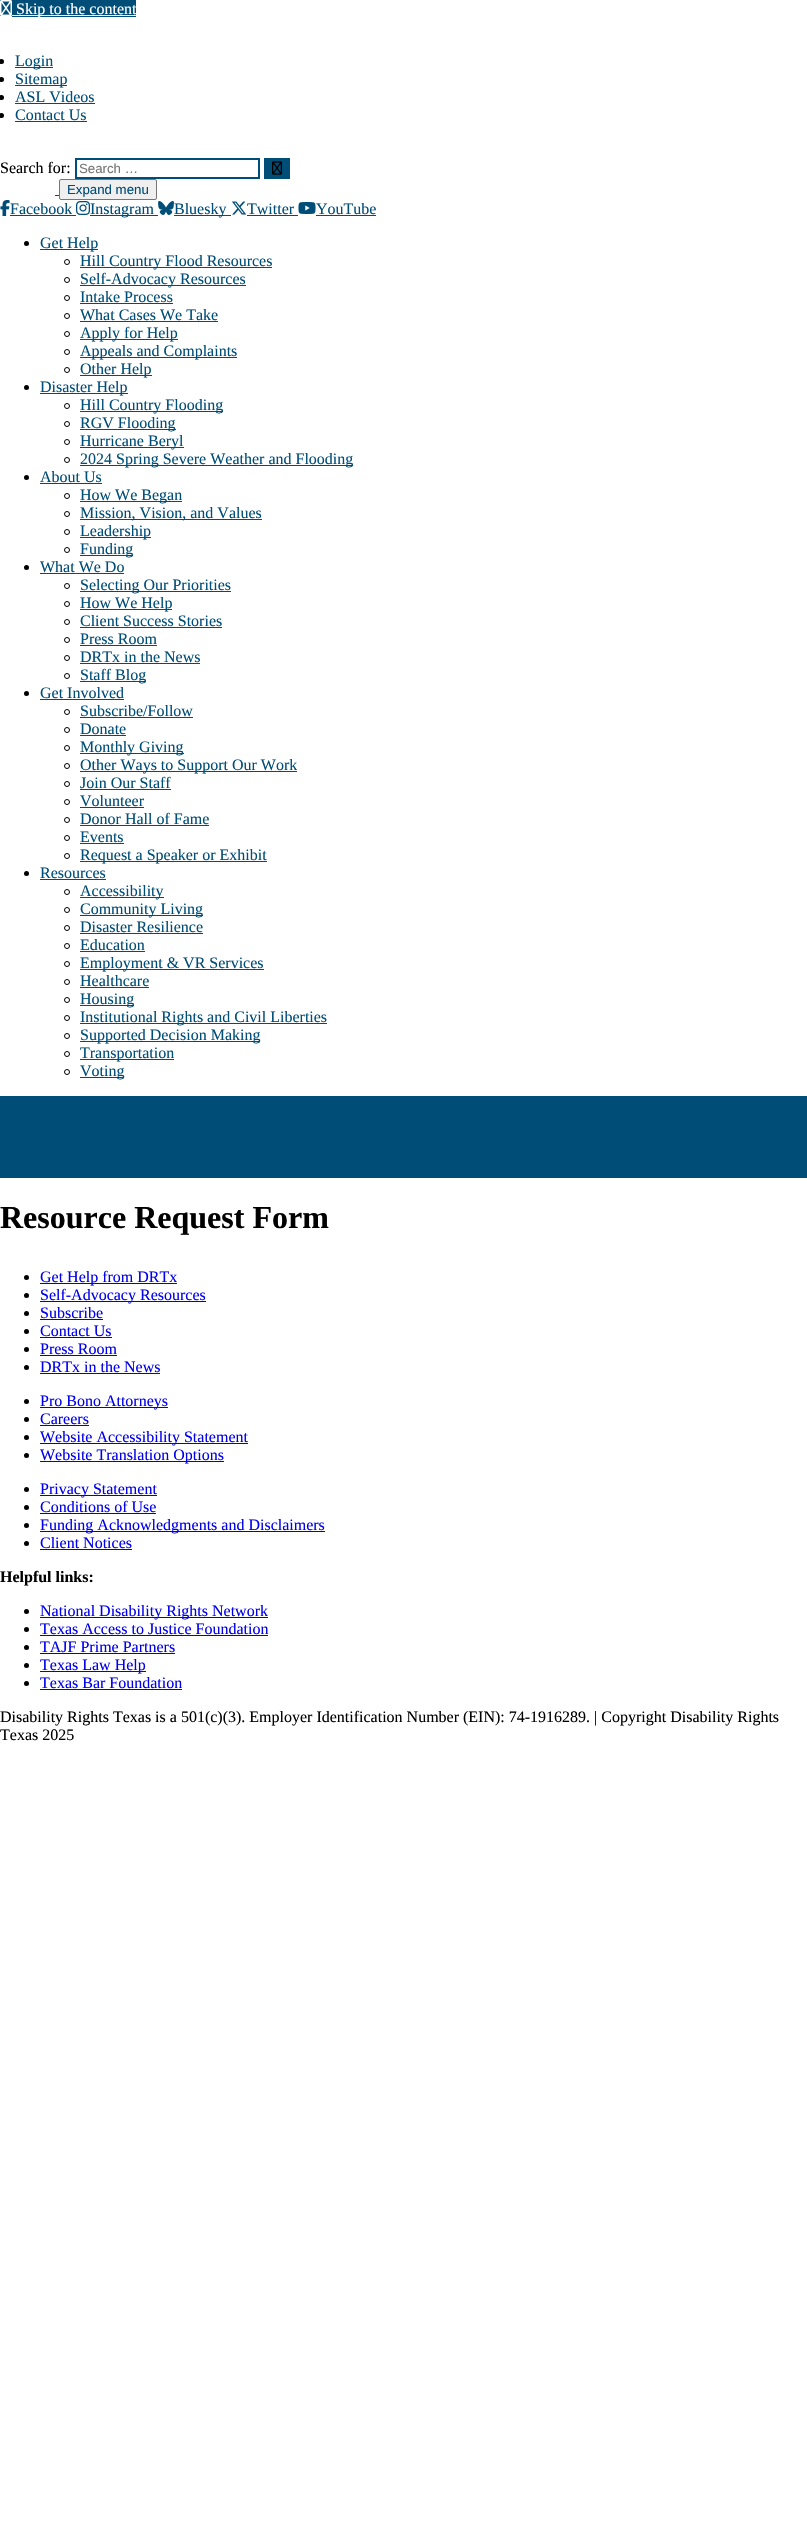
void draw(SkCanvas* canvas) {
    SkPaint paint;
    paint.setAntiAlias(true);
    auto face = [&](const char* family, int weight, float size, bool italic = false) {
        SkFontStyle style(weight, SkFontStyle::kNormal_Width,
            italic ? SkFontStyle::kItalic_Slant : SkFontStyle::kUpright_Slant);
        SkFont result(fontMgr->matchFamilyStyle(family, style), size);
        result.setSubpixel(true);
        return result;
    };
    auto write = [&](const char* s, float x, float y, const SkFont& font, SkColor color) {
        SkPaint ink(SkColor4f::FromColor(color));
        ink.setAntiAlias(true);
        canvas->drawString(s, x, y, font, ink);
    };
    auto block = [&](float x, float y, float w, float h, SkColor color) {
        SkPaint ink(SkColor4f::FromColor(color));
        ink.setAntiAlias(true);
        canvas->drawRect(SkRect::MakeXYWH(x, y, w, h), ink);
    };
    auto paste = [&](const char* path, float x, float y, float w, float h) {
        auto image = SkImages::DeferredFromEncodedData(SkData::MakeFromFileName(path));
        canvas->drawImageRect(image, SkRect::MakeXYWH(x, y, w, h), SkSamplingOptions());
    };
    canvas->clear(SK_ColorWHITE);
    block(0, 0, 12, 16, SkColorSetRGB(0, 77, 119));
    block(12, 0, 124, 17, SkColorSetRGB(0, 77, 119));
    paste("pic1.png", 0, 0, 12, 16);
    block(12, 15, 124, 1, SK_ColorWHITE);
    auto kFont1 = face("Liberation Serif", 400, 16);
    write("Skip to the content", 16, 14, kFont1, SK_ColorWHITE);
    paint.setColor(SK_ColorBLACK);
    canvas->drawCircle(1.5f, 61.5f, 2.5f, paint);
    block(15, 67, 38, 1, SkColorSetRGB(0, 77, 119));
    write("Login", 15, 66, kFont1, SkColorSetRGB(0, 77, 119));
    canvas->drawCircle(1.5f, 79.5f, 2.5f, paint);
    block(15, 85, 52, 1, SkColorSetRGB(0, 77, 119));
    write("Sitemap", 15, 84, kFont1, SkColorSetRGB(0, 77, 119));
    canvas->drawCircle(1.5f, 97.5f, 2.5f, paint);
    write("ASL Videos", 15, 102, kFont1, SkColorSetRGB(0, 77, 119));
    block(15, 103, 80, 1, SkColorSetRGB(0, 77, 119));
    canvas->drawCircle(1.5f, 115.5f, 2.5f, paint);
    write("Contact Us", 15, 120, kFont1, SkColorSetRGB(0, 77, 119));
    block(15, 121, 72, 1, SkColorSetRGB(0, 77, 119));
    write("Search for:", 0, 173, kFont1, SK_ColorBLACK);
    paint.setStyle(SkPaint::kStroke_Style);
    paint.setStrokeWidth(2);
    paint.setColor(SkColorSetRGB(0, 77, 119));
    canvas->drawRect(SkRect::MakeXYWH(76, 159, 183, 19), paint);
    auto kFont2 = face("Liberation Sans", 400, 13.25f);
    write("Search …", 79, 173, kFont2, SkColorSetRGB(117, 117, 117));
    block(264, 158, 26, 21, SkColorSetRGB(0, 77, 119));
    paste("pic2.png", 272, 161, 10, 14);
    block(55, 195, 4, 1, SkColorSetRGB(0, 77, 119));
    paint.setStyle(SkPaint::kFill_Style);
    paint.setColor(SkColorSetRGB(239, 239, 239));
    canvas->drawRoundRect(SkRect::MakeXYWH(59.5f, 179.5f, 97, 20), 1.5f, 1.5f, paint);
    paint.setStyle(SkPaint::kStroke_Style);
    paint.setStrokeWidth(1);
    paint.setColor(SkColorSetRGB(118, 118, 118));
    canvas->drawRoundRect(SkRect::MakeXYWH(59.5f, 179.5f, 97, 20), 1.5f, 1.5f, paint);
    write("Expand menu", 67, 194, kFont2, SkColorSetRGB(0, 77, 119));
    paste("pic3.png", 0, 200, 10, 16);
    write("Facebook", 10, 214, kFont1, SkColorSetRGB(0, 77, 119));
    block(10, 215, 66, 1, SkColorSetRGB(0, 77, 119));
    paste("pic4.png", 76, 201, 14, 14);
    block(90, 215, 68, 1, SkColorSetRGB(0, 77, 119));
    write("Instagram", 90, 214, kFont1, SkColorSetRGB(0, 77, 119));
    paste("pic5.png", 158, 201, 16, 14);
    block(174, 215, 57, 1, SkColorSetRGB(0, 77, 119));
    write("Bluesky", 174, 214, kFont1, SkColorSetRGB(0, 77, 119));
    paste("pic6.png", 232, 201, 15, 14);
    write("Twitter", 247, 214, kFont1, SkColorSetRGB(0, 77, 119));
    block(247, 215, 51, 1, SkColorSetRGB(0, 77, 119));
    paste("pic7.png", 298, 202, 18, 12);
    write("YouTube", 316, 214, kFont1, SkColorSetRGB(0, 77, 119));
    block(316, 215, 60, 1, SkColorSetRGB(0, 77, 119));
    paint.setStyle(SkPaint::kFill_Style);
    paint.setColor(SK_ColorBLACK);
    canvas->drawCircle(26.5f, 243.5f, 2.5f, paint);
    block(40, 249, 58, 1, SkColorSetRGB(0, 77, 119));
    write("Get Help", 40, 248, kFont1, SkColorSetRGB(0, 77, 119));
    paint.setStyle(SkPaint::kStroke_Style);
    canvas->drawCircle(67, 262, 2.5f, paint);
    block(80, 267, 192, 1, SkColorSetRGB(0, 77, 119));
    write("Hill Country Flood Resources", 80, 266, kFont1, SkColorSetRGB(0, 77, 119));
    canvas->drawCircle(67, 280, 2.5f, paint);
    block(80, 285, 166, 1, SkColorSetRGB(0, 77, 119));
    write("Self-Advocacy Resources", 80, 284, kFont1, SkColorSetRGB(0, 77, 119));
    canvas->drawCircle(67, 298, 2.5f, paint);
    write("Intake Process", 80, 302, kFont1, SkColorSetRGB(0, 77, 119));
    block(80, 303, 93, 1, SkColorSetRGB(0, 77, 119));
    canvas->drawCircle(67, 316, 2.5f, paint);
    write("What Cases We Take", 80, 320, kFont1, SkColorSetRGB(0, 77, 119));
    block(80, 321, 138, 1, SkColorSetRGB(0, 77, 119));
    canvas->drawCircle(67, 334, 2.5f, paint);
    block(80, 339, 98, 1, SkColorSetRGB(0, 77, 119));
    write("Apply for Help", 80, 338, kFont1, SkColorSetRGB(0, 77, 119));
    canvas->drawCircle(67, 352, 2.5f, paint);
    block(80, 357, 157, 1, SkColorSetRGB(0, 77, 119));
    write("Appeals and Complaints", 80, 356, kFont1, SkColorSetRGB(0, 77, 119));
    canvas->drawCircle(67, 370, 2.5f, paint);
    block(80, 375, 72, 1, SkColorSetRGB(0, 77, 119));
    write("Other Help", 80, 374, kFont1, SkColorSetRGB(0, 77, 119));
    paint.setStyle(SkPaint::kFill_Style);
    canvas->drawCircle(26.5f, 387.5f, 2.5f, paint);
    block(40, 393, 88, 1, SkColorSetRGB(0, 77, 119));
    write("Disaster Help", 40, 392, kFont1, SkColorSetRGB(0, 77, 119));
    paint.setStyle(SkPaint::kStroke_Style);
    canvas->drawCircle(67, 406, 2.5f, paint);
    block(80, 411, 143, 1, SkColorSetRGB(0, 77, 119));
    write("Hill Country Flooding", 80, 410, kFont1, SkColorSetRGB(0, 77, 119));
    canvas->drawCircle(67, 424, 2.5f, paint);
    block(80, 429, 96, 1, SkColorSetRGB(0, 77, 119));
    write("RGV Flooding", 80, 428, kFont1, SkColorSetRGB(0, 77, 119));
    canvas->drawCircle(67, 442, 2.5f, paint);
    block(80, 447, 104, 1, SkColorSetRGB(0, 77, 119));
    write("Hurricane Beryl", 80, 446, kFont1, SkColorSetRGB(0, 77, 119));
    canvas->drawCircle(67, 460, 2.5f, paint);
    block(80, 465, 273, 1, SkColorSetRGB(0, 77, 119));
    write("2024 Spring Severe Weather and Flooding", 80, 464, kFont1, SkColorSetRGB(0, 77, 119));
    paint.setStyle(SkPaint::kFill_Style);
    canvas->drawCircle(26.5f, 477.5f, 2.5f, paint);
    write("About Us", 40, 482, kFont1, SkColorSetRGB(0, 77, 119));
    block(40, 483, 62, 1, SkColorSetRGB(0, 77, 119));
    paint.setStyle(SkPaint::kStroke_Style);
    canvas->drawCircle(67, 496, 2.5f, paint);
    block(80, 501, 102, 1, SkColorSetRGB(0, 77, 119));
    write("How We Began", 80, 500, kFont1, SkColorSetRGB(0, 77, 119));
    canvas->drawCircle(67, 514, 2.5f, paint);
    block(80, 519, 182, 1, SkColorSetRGB(0, 77, 119));
    write("Mission, Vision, and Values", 80, 518, kFont1, SkColorSetRGB(0, 77, 119));
    canvas->drawCircle(67, 532, 2.5f, paint);
    block(80, 537, 71, 1, SkColorSetRGB(0, 77, 119));
    write("Leadership", 80, 536, kFont1, SkColorSetRGB(0, 77, 119));
    canvas->drawCircle(67, 550, 2.5f, paint);
    block(80, 555, 53, 1, SkColorSetRGB(0, 77, 119));
    write("Funding", 80, 554, kFont1, SkColorSetRGB(0, 77, 119));
    paint.setStyle(SkPaint::kFill_Style);
    canvas->drawCircle(26.5f, 567.5f, 2.5f, paint);
    write("What We Do", 40, 572, kFont1, SkColorSetRGB(0, 77, 119));
    block(40, 573, 84, 1, SkColorSetRGB(0, 77, 119));
    paint.setStyle(SkPaint::kStroke_Style);
    canvas->drawCircle(67, 586, 2.5f, paint);
    block(80, 591, 151, 1, SkColorSetRGB(0, 77, 119));
    write("Selecting Our Priorities", 80, 590, kFont1, SkColorSetRGB(0, 77, 119));
    canvas->drawCircle(67, 604, 2.5f, paint);
    block(80, 609, 92, 1, SkColorSetRGB(0, 77, 119));
    write("How We Help", 80, 608, kFont1, SkColorSetRGB(0, 77, 119));
    canvas->drawCircle(67, 622, 2.5f, paint);
    write("Client Success Stories", 80, 626, kFont1, SkColorSetRGB(0, 77, 119));
    block(80, 627, 142, 1, SkColorSetRGB(0, 77, 119));
    canvas->drawCircle(67, 640, 2.5f, paint);
    write("Press Room", 80, 644, kFont1, SkColorSetRGB(0, 77, 119));
    block(80, 645, 77, 1, SkColorSetRGB(0, 77, 119));
    canvas->drawCircle(67, 658, 2.5f, paint);
    write("DRTx in the News", 80, 662, kFont1, SkColorSetRGB(0, 77, 119));
    block(80, 663, 120, 1, SkColorSetRGB(0, 77, 119));
    canvas->drawCircle(67, 676, 2.5f, paint);
    block(80, 681, 66, 1, SkColorSetRGB(0, 77, 119));
    write("Staff Blog", 80, 680, kFont1, SkColorSetRGB(0, 77, 119));
    paint.setStyle(SkPaint::kFill_Style);
    canvas->drawCircle(26.5f, 693.5f, 2.5f, paint);
    write("Get Involved", 40, 698, kFont1, SkColorSetRGB(0, 77, 119));
    block(40, 699, 84, 1, SkColorSetRGB(0, 77, 119));
    paint.setStyle(SkPaint::kStroke_Style);
    canvas->drawCircle(67, 712, 2.5f, paint);
    write("Subscribe/Follow", 80, 716, kFont1, SkColorSetRGB(0, 77, 119));
    block(80, 717, 113, 1, SkColorSetRGB(0, 77, 119));
    canvas->drawCircle(67, 730, 2.5f, paint);
    write("Donate", 80, 734, kFont1, SkColorSetRGB(0, 77, 119));
    block(80, 735, 46, 1, SkColorSetRGB(0, 77, 119));
    canvas->drawCircle(67, 748, 2.5f, paint);
    block(80, 753, 104, 1, SkColorSetRGB(0, 77, 119));
    write("Monthly Giving", 80, 752, kFont1, SkColorSetRGB(0, 77, 119));
    canvas->drawCircle(67, 766, 2.5f, paint);
    block(80, 771, 217, 1, SkColorSetRGB(0, 77, 119));
    write("Other Ways to Support Our Work", 80, 770, kFont1, SkColorSetRGB(0, 77, 119));
    canvas->drawCircle(67, 784, 2.5f, paint);
    write("Join Our Staff", 80, 788, kFont1, SkColorSetRGB(0, 77, 119));
    block(80, 789, 91, 1, SkColorSetRGB(0, 77, 119));
    canvas->drawCircle(67, 802, 2.5f, paint);
    write("Volunteer", 80, 806, kFont1, SkColorSetRGB(0, 77, 119));
    block(80, 807, 64, 1, SkColorSetRGB(0, 77, 119));
    canvas->drawCircle(67, 820, 2.5f, paint);
    write("Donor Hall of Fame", 80, 824, kFont1, SkColorSetRGB(0, 77, 119));
    block(80, 825, 129, 1, SkColorSetRGB(0, 77, 119));
    canvas->drawCircle(67, 838, 2.5f, paint);
    write("Events", 80, 842, kFont1, SkColorSetRGB(0, 77, 119));
    block(80, 843, 44, 1, SkColorSetRGB(0, 77, 119));
    canvas->drawCircle(67, 856, 2.5f, paint);
    block(80, 861, 187, 1, SkColorSetRGB(0, 77, 119));
    write("Request a Speaker or Exhibit", 80, 860, kFont1, SkColorSetRGB(0, 77, 119));
    paint.setStyle(SkPaint::kFill_Style);
    canvas->drawCircle(26.5f, 873.5f, 2.5f, paint);
    write("Resources", 40, 878, kFont1, SkColorSetRGB(0, 77, 119));
    block(40, 879, 66, 1, SkColorSetRGB(0, 77, 119));
    paint.setStyle(SkPaint::kStroke_Style);
    canvas->drawCircle(67, 892, 2.5f, paint);
    block(80, 897, 84, 1, SkColorSetRGB(0, 77, 119));
    write("Accessibility", 80, 896, kFont1, SkColorSetRGB(0, 77, 119));
    canvas->drawCircle(67, 910, 2.5f, paint);
    block(80, 915, 123, 1, SkColorSetRGB(0, 77, 119));
    write("Community Living", 80, 914, kFont1, SkColorSetRGB(0, 77, 119));
    canvas->drawCircle(67, 928, 2.5f, paint);
    write("Disaster Resilience", 80, 932, kFont1, SkColorSetRGB(0, 77, 119));
    block(80, 933, 123, 1, SkColorSetRGB(0, 77, 119));
    canvas->drawCircle(67, 946, 2.5f, paint);
    write("Education", 80, 950, kFont1, SkColorSetRGB(0, 77, 119));
    block(80, 951, 65, 1, SkColorSetRGB(0, 77, 119));
    canvas->drawCircle(67, 964, 2.5f, paint);
    block(80, 969, 184, 1, SkColorSetRGB(0, 77, 119));
    write("Employment & VR Services", 80, 968, kFont1, SkColorSetRGB(0, 77, 119));
    canvas->drawCircle(67, 982, 2.5f, paint);
    write("Healthcare", 80, 986, kFont1, SkColorSetRGB(0, 77, 119));
    block(80, 987, 69, 1, SkColorSetRGB(0, 77, 119));
    canvas->drawCircle(67, 1000, 2.5f, paint);
    block(80, 1005, 54, 1, SkColorSetRGB(0, 77, 119));
    write("Housing", 80, 1004, kFont1, SkColorSetRGB(0, 77, 119));
    canvas->drawCircle(67, 1018, 2.5f, paint);
    block(80, 1023, 247, 1, SkColorSetRGB(0, 77, 119));
    write("Institutional Rights and Civil Liberties", 80, 1022, kFont1, SkColorSetRGB(0, 77, 119));
    canvas->drawCircle(67, 1036, 2.5f, paint);
    block(80, 1041, 180, 1, SkColorSetRGB(0, 77, 119));
    write("Supported Decision Making", 80, 1040, kFont1, SkColorSetRGB(0, 77, 119));
    canvas->drawCircle(67, 1054, 2.5f, paint);
    block(80, 1059, 94, 1, SkColorSetRGB(0, 77, 119));
    write("Transportation", 80, 1058, kFont1, SkColorSetRGB(0, 77, 119));
    canvas->drawCircle(67, 1072, 2.5f, paint);
    block(80, 1077, 44, 1, SkColorSetRGB(0, 77, 119));
    write("Voting", 80, 1076, kFont1, SkColorSetRGB(0, 77, 119));
    block(0, 1096, 807, 82, SkColorSetRGB(0, 77, 119));
    auto kFont3 = face("Liberation Serif", 700, 32);
    write("Resource Request Form", 0, 1228, kFont3, SK_ColorBLACK);
    paint.setStyle(SkPaint::kFill_Style);
    canvas->drawCircle(26.5f, 1277.5f, 2.5f, paint);
    block(40, 1283, 137, 1, SkColorSetRGB(0, 0, 238));
    write("Get Help from DRTx", 40, 1282, kFont1, SkColorSetRGB(0, 0, 238));
    canvas->drawCircle(26.5f, 1295.5f, 2.5f, paint);
    block(40, 1301, 166, 1, SkColorSetRGB(0, 0, 238));
    write("Self-Advocacy Resources", 40, 1300, kFont1, SkColorSetRGB(0, 0, 238));
    canvas->drawCircle(26.5f, 1313.5f, 2.5f, paint);
    write("Subscribe", 40, 1318, kFont1, SkColorSetRGB(0, 0, 238));
    block(40, 1319, 63, 1, SkColorSetRGB(0, 0, 238));
    canvas->drawCircle(26.5f, 1331.5f, 2.5f, paint);
    write("Contact Us", 40, 1336, kFont1, SkColorSetRGB(0, 0, 238));
    block(40, 1337, 72, 1, SkColorSetRGB(0, 0, 238));
    canvas->drawCircle(26.5f, 1349.5f, 2.5f, paint);
    write("Press Room", 40, 1354, kFont1, SkColorSetRGB(0, 0, 238));
    block(40, 1355, 77, 1, SkColorSetRGB(0, 0, 238));
    canvas->drawCircle(26.5f, 1367.5f, 2.5f, paint);
    write("DRTx in the News", 40, 1372, kFont1, SkColorSetRGB(0, 0, 238));
    block(40, 1373, 120, 1, SkColorSetRGB(0, 0, 238));
    canvas->drawCircle(26.5f, 1401.5f, 2.5f, paint);
    block(40, 1407, 128, 1, SkColorSetRGB(0, 0, 238));
    write("Pro Bono Attorneys", 40, 1406, kFont1, SkColorSetRGB(0, 0, 238));
    canvas->drawCircle(26.5f, 1419.5f, 2.5f, paint);
    write("Careers", 40, 1424, kFont1, SkColorSetRGB(0, 0, 238));
    block(40, 1425, 49, 1, SkColorSetRGB(0, 0, 238));
    canvas->drawCircle(26.5f, 1437.5f, 2.5f, paint);
    block(40, 1443, 208, 1, SkColorSetRGB(0, 0, 238));
    write("Website Accessibility Statement", 40, 1442, kFont1, SkColorSetRGB(0, 0, 238));
    canvas->drawCircle(26.5f, 1455.5f, 2.5f, paint);
    block(40, 1461, 184, 1, SkColorSetRGB(0, 0, 238));
    write("Website Translation Options", 40, 1460, kFont1, SkColorSetRGB(0, 0, 238));
    canvas->drawCircle(26.5f, 1489.5f, 2.5f, paint);
    block(40, 1495, 117, 1, SkColorSetRGB(0, 0, 238));
    write("Privacy Statement", 40, 1494, kFont1, SkColorSetRGB(0, 0, 238));
    canvas->drawCircle(26.5f, 1507.5f, 2.5f, paint);
    write("Conditions of Use", 40, 1512, kFont1, SkColorSetRGB(0, 0, 238));
    block(40, 1513, 116, 1, SkColorSetRGB(0, 0, 238));
    canvas->drawCircle(26.5f, 1525.5f, 2.5f, paint);
    block(40, 1531, 285, 1, SkColorSetRGB(0, 0, 238));
    write("Funding Acknowledgments and Disclaimers", 40, 1530, kFont1, SkColorSetRGB(0, 0, 238));
    canvas->drawCircle(26.5f, 1543.5f, 2.5f, paint);
    write("Client Notices", 40, 1548, kFont1, SkColorSetRGB(0, 0, 238));
    block(40, 1549, 92, 1, SkColorSetRGB(0, 0, 238));
    auto kFont4 = face("Liberation Serif", 700, 16);
    write("Helpful links:", 0, 1582, kFont4, SK_ColorBLACK);
    canvas->drawCircle(26.5f, 1611.5f, 2.5f, paint);
    block(40, 1617, 228, 1, SkColorSetRGB(0, 0, 238));
    write("National Disability Rights Network", 40, 1616, kFont1, SkColorSetRGB(0, 0, 238));
    canvas->drawCircle(26.5f, 1629.5f, 2.5f, paint);
    write("Texas Access to Justice Foundation", 40, 1634, kFont1, SkColorSetRGB(0, 0, 238));
    block(40, 1635, 228, 1, SkColorSetRGB(0, 0, 238));
    canvas->drawCircle(26.5f, 1647.5f, 2.5f, paint);
    write("TAJF Prime Partners", 40, 1652, kFont1, SkColorSetRGB(0, 0, 238));
    block(40, 1653, 135, 1, SkColorSetRGB(0, 0, 238));
    canvas->drawCircle(26.5f, 1665.5f, 2.5f, paint);
    block(40, 1671, 106, 1, SkColorSetRGB(0, 0, 238));
    write("Texas Law Help", 40, 1670, kFont1, SkColorSetRGB(0, 0, 238));
    canvas->drawCircle(26.5f, 1683.5f, 2.5f, paint);
    write("Texas Bar Foundation", 40, 1688, kFont1, SkColorSetRGB(0, 0, 238));
    block(40, 1689, 142, 1, SkColorSetRGB(0, 0, 238));
    write("Disability Rights Texas is a 501(c)(3). Employer Identification Number (EIN): 74-1916289. | Copyright Disability Rights", 0, 1722, kFont1, SK_ColorBLACK);
    write("Texas 2025", 0, 1740, kFont1, SK_ColorBLACK);
}
